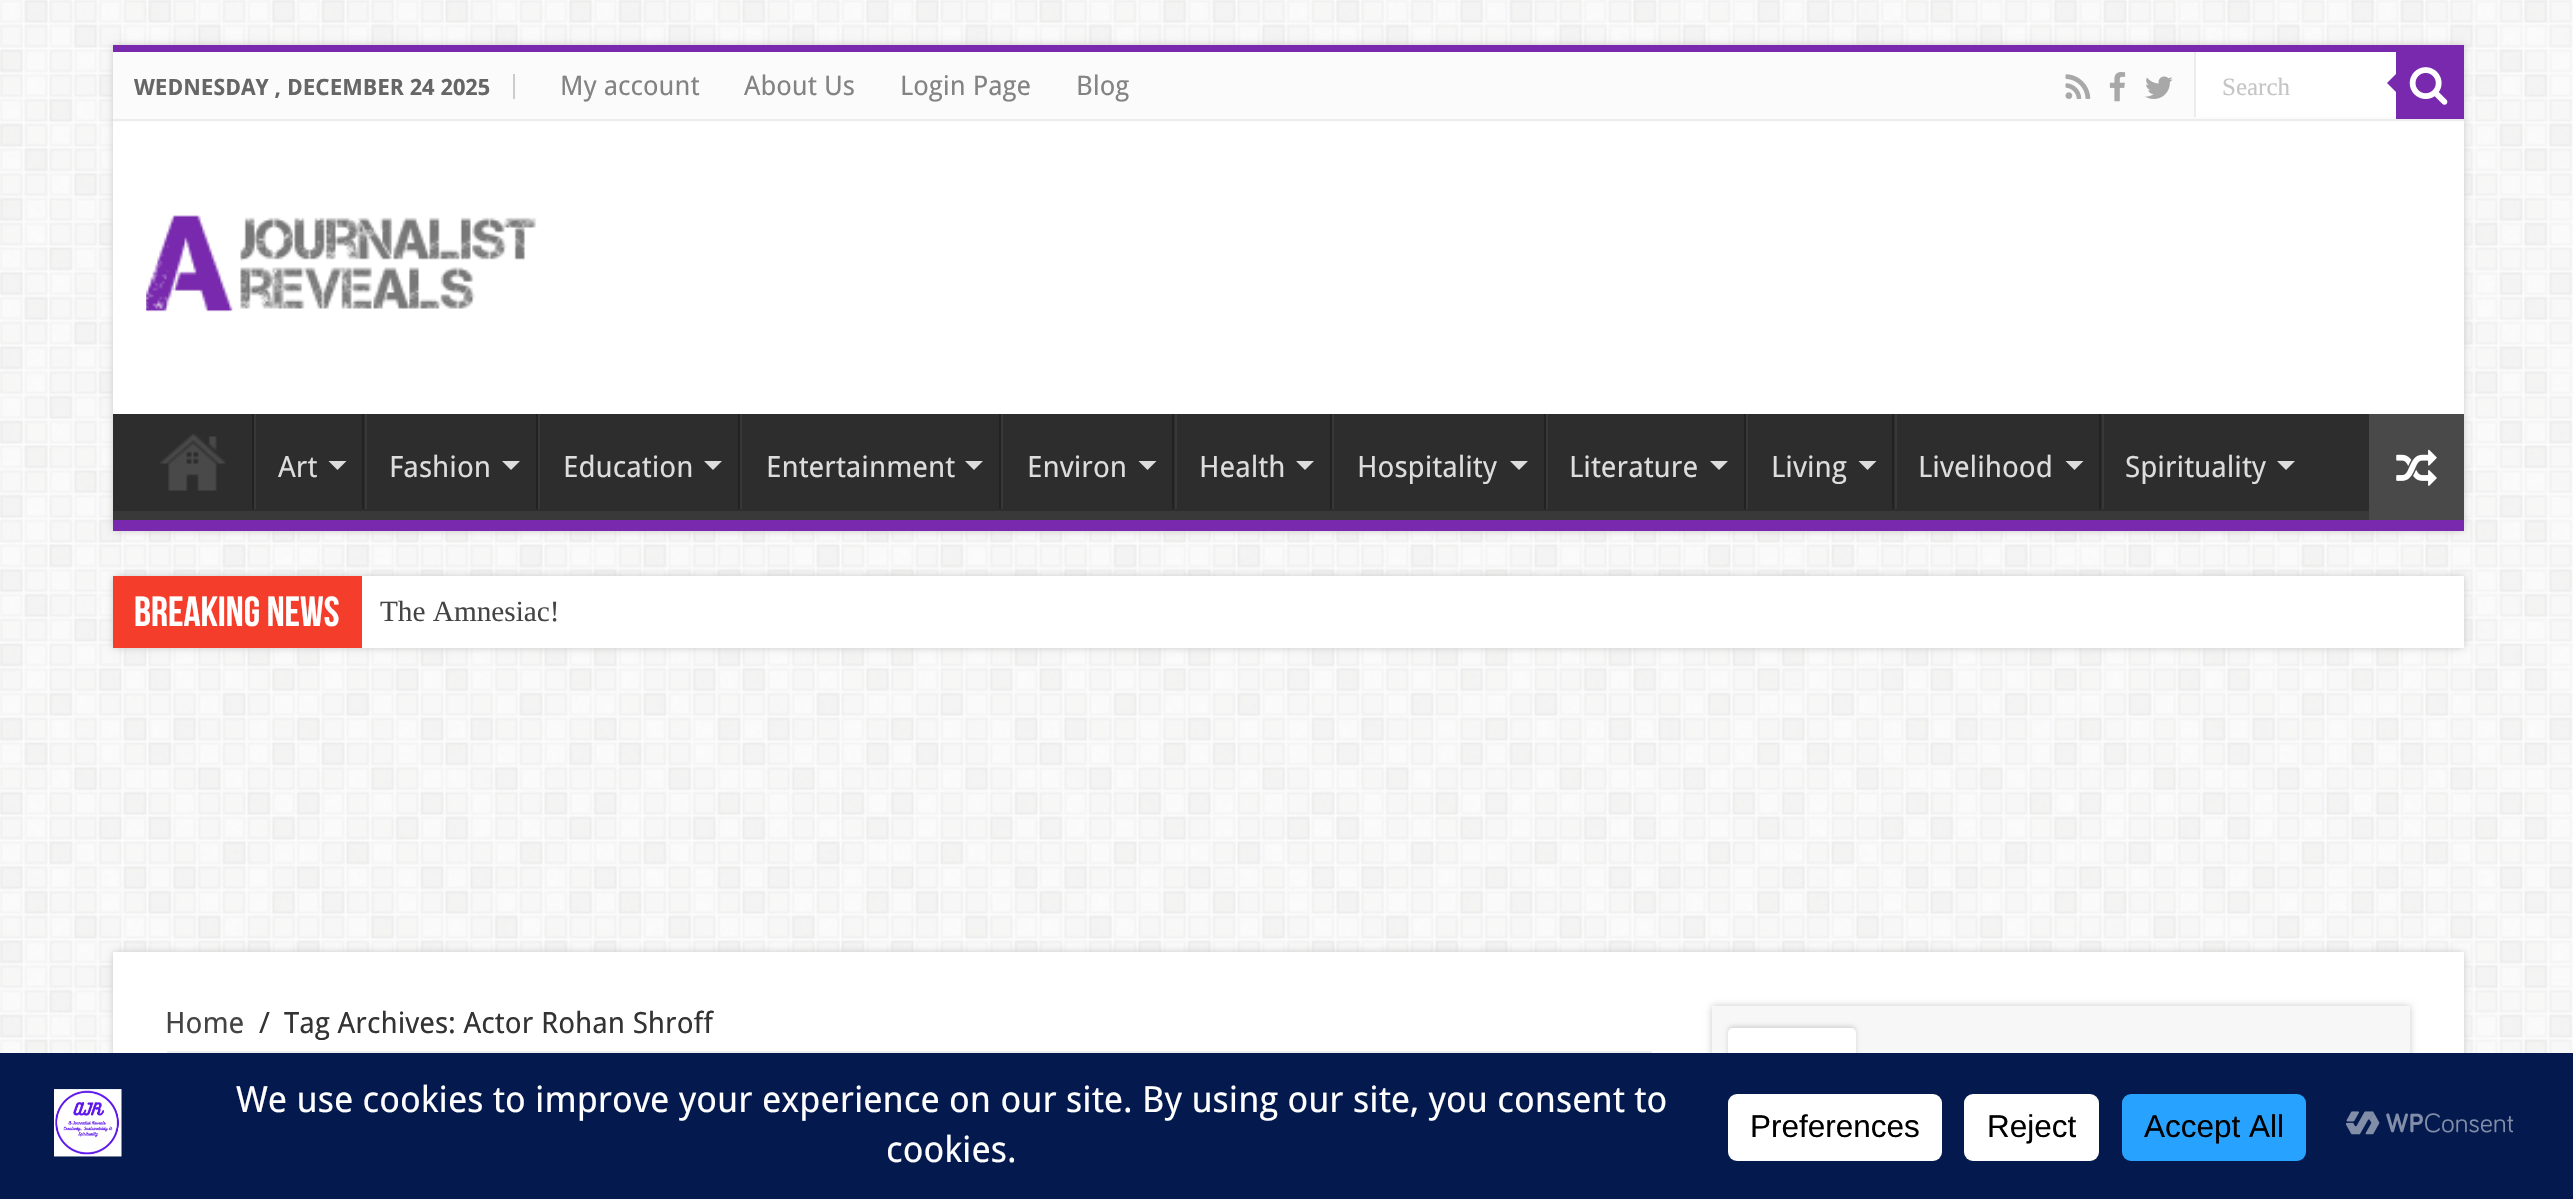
void draw(SkCanvas* canvas) {
    SkPaint paint;
    paint.setAntiAlias(true);
    auto face = [&](const char* family, int weight, float size, bool italic = false) {
        SkFontStyle style(weight, SkFontStyle::kNormal_Width,
            italic ? SkFontStyle::kItalic_Slant : SkFontStyle::kUpright_Slant);
        SkFont result(fontMgr->matchFamilyStyle(family, style), size);
        result.setSubpixel(true);
        return result;
    };
    auto write = [&](const char* s, float x, float y, const SkFont& font, SkColor color) {
        SkPaint ink(SkColor4f::FromColor(color));
        ink.setAntiAlias(true);
        canvas->drawString(s, x, y, font, ink);
    };
    auto block = [&](float x, float y, float w, float h, SkColor color) {
        SkPaint ink(SkColor4f::FromColor(color));
        ink.setAntiAlias(true);
        canvas->drawRect(SkRect::MakeXYWH(x, y, w, h), ink);
    };
    auto card = [&](float x, float y, float w, float h, float radius, SkColor color) {
        SkPaint ink(SkColor4f::FromColor(color));
        ink.setAntiAlias(true);
        canvas->drawRoundRect(SkRect::MakeXYWH(x, y, w, h), radius, radius, ink);
    };
    auto paste = [&](const char* path, float x, float y, float w, float h) {
        auto image = SkImages::DeferredFromEncodedData(SkData::MakeFromFileName(path));
        canvas->drawImageRect(image, SkRect::MakeXYWH(x, y, w, h), SkSamplingOptions());
    };
    canvas->clear(SK_ColorWHITE);
    paste("pic1.png", 0, 0, 2573, 1053);
    paint.setColor(SkColorSetRGB(202, 202, 202));
    paint.setMaskFilter(SkMaskFilter::MakeBlur(kNormal_SkBlurStyle, 3.5f));
    canvas->drawRect(SkRect::MakeXYWH(113, 45, 2351, 486), paint);
    paint.setMaskFilter(nullptr);
    block(113, 122, 2351, 292, SK_ColorWHITE);
    block(113, 45, 2351, 7, SkColorSetRGB(120, 41, 173));
    block(113, 52, 2351, 70, SkColorSetRGB(251, 251, 251));
    block(113, 119, 2351, 2, SkColorSetRGB(236, 236, 236));
    block(513, 74, 2, 25, SkColorSetRGB(204, 204, 204));
    auto kFont1 = face("Droid Sans", 700, 22.5f);
    write("WEDNESDAY , DECEMBER 24 2025", 134, 95, kFont1, SkColorSetRGB(102, 102, 102));
    auto kFont2 = face("Droid Sans", 400, 27);
    write("My account", 560, 95, kFont2, SkColorSetRGB(131, 131, 131));
    write("About Us", 744, 95, kFont2, SkColorSetRGB(131, 131, 131));
    write("Login Page", 900, 95, kFont2, SkColorSetRGB(131, 131, 131));
    write("Blog", 1076, 95, kFont2, SkColorSetRGB(131, 131, 131));
    paste("pic2.png", 2065, 74, 26, 25);
    paste("pic3.png", 2109, 72, 17, 30);
    paste("pic4.png", 2145, 76, 28, 23);
    block(2196, 52, 200, 65, SK_ColorWHITE);
    block(2194, 52, 2, 65, SkColorSetRGB(236, 236, 236));
    auto kFont3 = face("Liberation Serif", 400, 25);
    write("Search", 2222, 95, kFont3, SkColorSetRGB(197, 197, 197));
    block(2396, 52, 68, 67, SkColorSetRGB(120, 41, 173));
    paste("pic5.png", 2409, 67, 39, 38);
    paint.setColor(SkColorSetRGB(120, 41, 173));
    canvas->drawPath(SkPathBuilder().moveTo(2396, 74).lineTo(2396, 92).lineTo(2387, 83).close().detach(), paint);
    paste("pic6.png", 146, 215, 391, 97);
    block(113, 414, 2256, 97, SkColorSetRGB(45, 45, 45));
    canvas->save();
    canvas->clipRect(SkRect::MakeXYWH(113, 414, 2351, 106));
    paint.setColor(SkColorSetRGB(57, 57, 57));
    canvas->drawPath(SkPathBuilder(SkPathFillType::kEvenOdd).moveTo(-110, 191).lineTo(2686, 191).lineTo(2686, 742).lineTo(-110, 742).close().moveTo(110, 400).lineTo(2462, 400).cubicTo(2463, 400, 2464, 402, 2464, 403).lineTo(2464, 508).cubicTo(2464, 510, 2463, 511, 2462, 511).lineTo(110, 511).cubicTo(109, 511, 108, 510, 108, 508).lineTo(108, 403).cubicTo(108, 402, 109, 400, 110, 400).close().detach(), paint);
    canvas->restore();
    block(113, 520, 2351, 11, SkColorSetRGB(120, 41, 173));
    paste("pic7.png", 160, 434, 66, 57);
    block(252, 414, 2, 95, SkColorSetRGB(34, 34, 34));
    block(254, 414, 2, 95, SkColorSetRGB(56, 56, 56));
    auto kFont4 = face("Droid Sans", 400, 29.25f);
    write("Art", 278, 477, kFont4, SkColorSetRGB(221, 221, 221));
    paint.setColor(SkColorSetRGB(221, 221, 221));
    canvas->drawPath(SkPathBuilder().moveTo(328.5f, 461).lineTo(346.5f, 461).lineTo(337.5f, 470).close().detach(), paint);
    block(362, 414, 2, 95, SkColorSetRGB(34, 34, 34));
    block(365, 414, 2, 95, SkColorSetRGB(56, 56, 56));
    write("Fashion", 389, 477, kFont4, SkColorSetRGB(221, 221, 221));
    canvas->drawPath(SkPathBuilder().moveTo(502, 461).lineTo(520, 461).lineTo(511, 470).close().detach(), paint);
    block(536, 414, 2, 95, SkColorSetRGB(34, 34, 34));
    block(538, 414, 2, 95, SkColorSetRGB(56, 56, 56));
    write("Education", 563, 477, kFont4, SkColorSetRGB(221, 221, 221));
    canvas->drawPath(SkPathBuilder().moveTo(704, 461).lineTo(722, 461).lineTo(713, 470).close().detach(), paint);
    block(738, 414, 2, 95, SkColorSetRGB(34, 34, 34));
    block(740, 414, 2, 95, SkColorSetRGB(56, 56, 56));
    write("Entertainment", 766, 477, kFont4, SkColorSetRGB(221, 221, 221));
    canvas->drawPath(SkPathBuilder().moveTo(965, 461).lineTo(983, 461).lineTo(974, 470).close().detach(), paint);
    block(999, 414, 2, 95, SkColorSetRGB(34, 34, 34));
    block(1001, 414, 2, 95, SkColorSetRGB(56, 56, 56));
    write("Environ", 1027, 477, kFont4, SkColorSetRGB(221, 221, 221));
    canvas->drawPath(SkPathBuilder().moveTo(1138.5f, 461).lineTo(1156.5f, 461).lineTo(1147.5f, 470).close().detach(), paint);
    block(1172, 414, 2, 95, SkColorSetRGB(34, 34, 34));
    block(1175, 414, 2, 95, SkColorSetRGB(56, 56, 56));
    write("Health", 1199, 477, kFont4, SkColorSetRGB(221, 221, 221));
    canvas->drawPath(SkPathBuilder().moveTo(1296, 461).lineTo(1314, 461).lineTo(1305, 470).close().detach(), paint);
    block(1330, 414, 2, 95, SkColorSetRGB(34, 34, 34));
    block(1332, 414, 2, 95, SkColorSetRGB(56, 56, 56));
    write("Hospitality", 1357, 477, kFont4, SkColorSetRGB(221, 221, 221));
    canvas->drawPath(SkPathBuilder().moveTo(1510, 461).lineTo(1528, 461).lineTo(1519, 470).close().detach(), paint);
    block(1544, 414, 2, 95, SkColorSetRGB(34, 34, 34));
    block(1546, 414, 2, 95, SkColorSetRGB(56, 56, 56));
    write("Literature", 1569, 477, kFont4, SkColorSetRGB(221, 221, 221));
    canvas->drawPath(SkPathBuilder().moveTo(1710, 461).lineTo(1728, 461).lineTo(1719, 470).close().detach(), paint);
    block(1744, 414, 2, 95, SkColorSetRGB(34, 34, 34));
    block(1746, 414, 2, 95, SkColorSetRGB(56, 56, 56));
    write("Living", 1771, 477, kFont4, SkColorSetRGB(221, 221, 221));
    canvas->drawPath(SkPathBuilder().moveTo(1858.5f, 461).lineTo(1876.5f, 461).lineTo(1867.5f, 470).close().detach(), paint);
    block(1892, 414, 2, 95, SkColorSetRGB(34, 34, 34));
    block(1895, 414, 2, 95, SkColorSetRGB(56, 56, 56));
    write("Livelihood", 1918, 477, kFont4, SkColorSetRGB(221, 221, 221));
    canvas->drawPath(SkPathBuilder().moveTo(2065.5f, 461).lineTo(2083.5f, 461).lineTo(2074.5f, 470).close().detach(), paint);
    block(2099, 414, 2, 95, SkColorSetRGB(34, 34, 34));
    block(2102, 414, 2, 95, SkColorSetRGB(56, 56, 56));
    write("Spirituality", 2125, 477, kFont4, SkColorSetRGB(221, 221, 221));
    canvas->drawPath(SkPathBuilder().moveTo(2277, 461).lineTo(2295, 461).lineTo(2286, 470).close().detach(), paint);
    block(2369, 414, 95, 106, SkColorSetRGB(73, 73, 73));
    paste("pic8.png", 2396, 449, 41, 37);
    paint.setColor(SkColorSetRGB(202, 202, 202));
    paint.setMaskFilter(SkMaskFilter::MakeBlur(kNormal_SkBlurStyle, 3.5f));
    canvas->drawRect(SkRect::MakeXYWH(113, 576, 2351, 72), paint);
    paint.setMaskFilter(nullptr);
    block(362, 576, 2102, 72, SK_ColorWHITE);
    block(113, 576, 249, 72, SkColorSetRGB(244, 61, 42));
    auto kFont5 = face("Bebas Neue", 700, 42);
    write("Breaking News", 134, 626, kFont5, SK_ColorWHITE);
    auto kFont6 = face("Liberation Serif", 400, 29.25f);
    write("The Amnesiac!", 380, 621, kFont6, SkColorSetRGB(68, 68, 68));
    paint.setMaskFilter(SkMaskFilter::MakeBlur(kNormal_SkBlurStyle, 3.5f));
    canvas->drawRect(SkRect::MakeXYWH(113, 952, 2351, 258), paint);
    paint.setMaskFilter(nullptr);
    block(113, 952, 2351, 101, SK_ColorWHITE);
    block(167, 1051, 1485, 2, SkColorSetRGB(238, 238, 238));
    write("Home", 165, 1033, kFont4, SkColorSetRGB(68, 68, 68));
    write("/", 259, 1033, kFont4, SkColorSetRGB(51, 51, 51));
    write("Tag Archives: Actor Rohan Shroff", 284, 1033, kFont4, SkColorSetRGB(51, 51, 51));
    paint.setMaskFilter(SkMaskFilter::MakeBlur(kNormal_SkBlurStyle, 3.5f));
    canvas->drawRect(SkRect::MakeXYWH(1712, 1006, 698, 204), paint);
    paint.setMaskFilter(nullptr);
    block(1712, 1006, 698, 47, SkColorSetRGB(247, 247, 247));
    paint.setColor(SkColorSetRGB(212, 212, 212));
    paint.setMaskFilter(SkMaskFilter::MakeBlur(kNormal_SkBlurStyle, 2));
    canvas->drawRoundRect(SkRect::MakeXYWH(1728, 1026, 128, 81), 5, 5, paint);
    paint.setMaskFilter(nullptr);
    paint.setColor(SK_ColorWHITE);
    canvas->drawPath(SkPathBuilder().moveTo(1733, 1028).lineTo(1851, 1028).cubicTo(1854, 1028, 1856, 1030, 1856, 1033).lineTo(1856, 1109).lineTo(1728, 1109).lineTo(1728, 1033).cubicTo(1728, 1030, 1730, 1028, 1733, 1028).close().detach(), paint);
    block(0, 1053, 2573, 146, SkColorSetRGB(4, 25, 78));
    paste("pic9.png", 54, 1089, 68, 68);
    auto kFont7 = face("Droid Sans", 400, 36);
    write("We use cookies to improve your experience on our site. By using our site, you consent to", 236, 1112, kFont7, SK_ColorWHITE);
    write("cookies.", 886, 1162, kFont7, SK_ColorWHITE);
    card(1728, 1094, 214, 67, 9, SK_ColorWHITE);
    auto kFont8 = face("Liberation Sans", 400, 31.5f);
    write("Preferences", 1750, 1137, kFont8, SK_ColorBLACK);
    card(1964, 1094, 135, 67, 9, SK_ColorWHITE);
    write("Reject", 1987, 1137, kFont8, SK_ColorBLACK);
    card(2122, 1094, 184, 67, 9, SkColorSetRGB(40, 162, 255));
    write("Accept All", 2144, 1137, kFont8, SK_ColorBLACK);
    paste("pic10.png", 2346, 1111, 168, 24);
}
